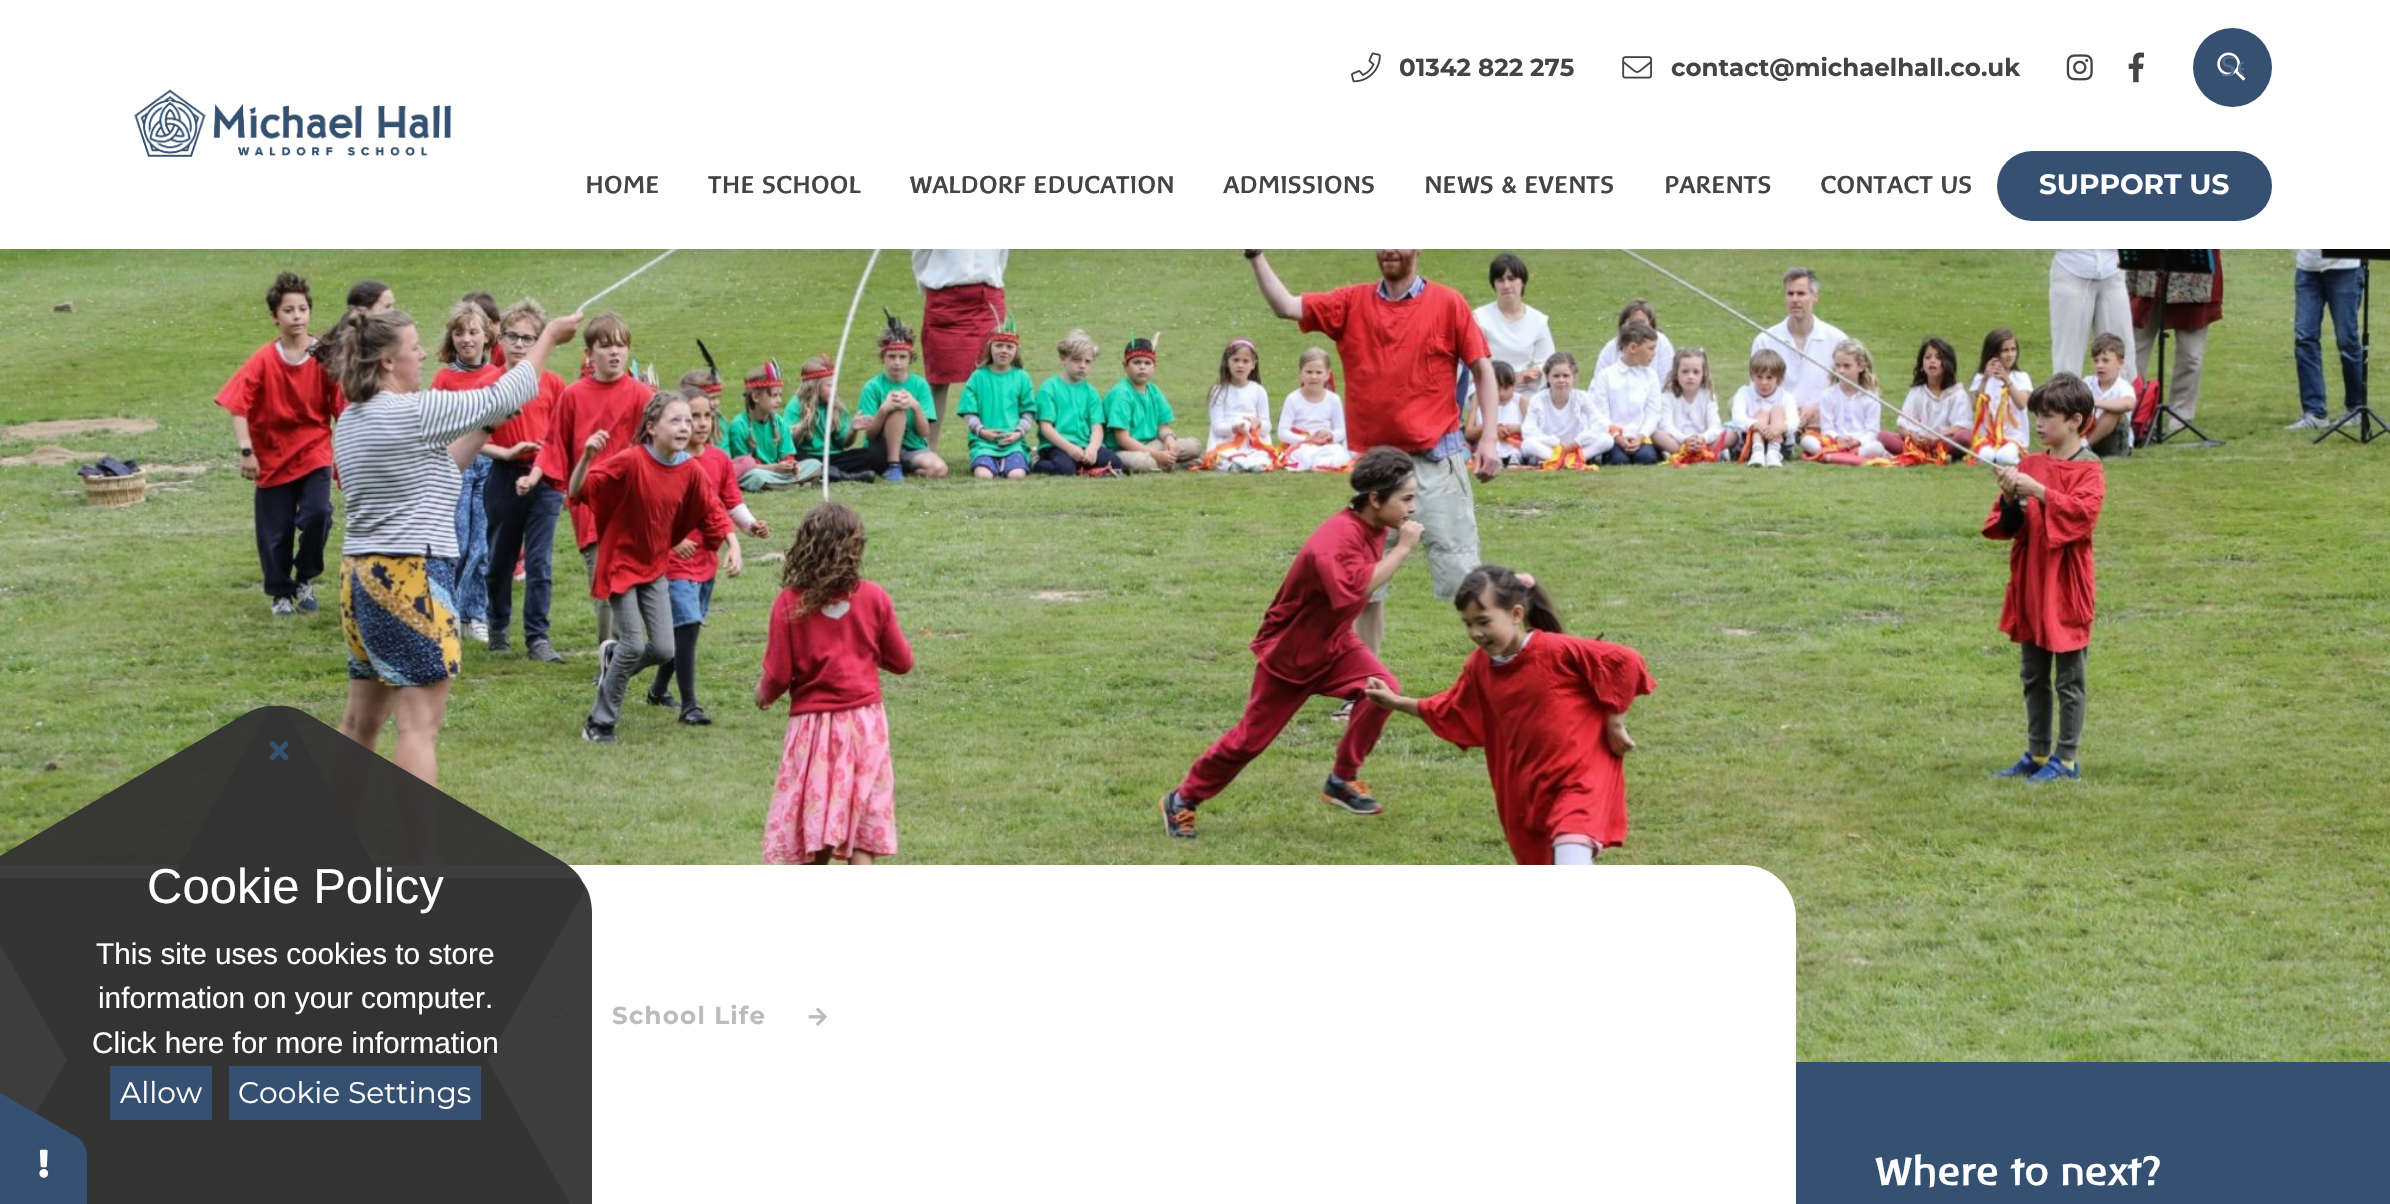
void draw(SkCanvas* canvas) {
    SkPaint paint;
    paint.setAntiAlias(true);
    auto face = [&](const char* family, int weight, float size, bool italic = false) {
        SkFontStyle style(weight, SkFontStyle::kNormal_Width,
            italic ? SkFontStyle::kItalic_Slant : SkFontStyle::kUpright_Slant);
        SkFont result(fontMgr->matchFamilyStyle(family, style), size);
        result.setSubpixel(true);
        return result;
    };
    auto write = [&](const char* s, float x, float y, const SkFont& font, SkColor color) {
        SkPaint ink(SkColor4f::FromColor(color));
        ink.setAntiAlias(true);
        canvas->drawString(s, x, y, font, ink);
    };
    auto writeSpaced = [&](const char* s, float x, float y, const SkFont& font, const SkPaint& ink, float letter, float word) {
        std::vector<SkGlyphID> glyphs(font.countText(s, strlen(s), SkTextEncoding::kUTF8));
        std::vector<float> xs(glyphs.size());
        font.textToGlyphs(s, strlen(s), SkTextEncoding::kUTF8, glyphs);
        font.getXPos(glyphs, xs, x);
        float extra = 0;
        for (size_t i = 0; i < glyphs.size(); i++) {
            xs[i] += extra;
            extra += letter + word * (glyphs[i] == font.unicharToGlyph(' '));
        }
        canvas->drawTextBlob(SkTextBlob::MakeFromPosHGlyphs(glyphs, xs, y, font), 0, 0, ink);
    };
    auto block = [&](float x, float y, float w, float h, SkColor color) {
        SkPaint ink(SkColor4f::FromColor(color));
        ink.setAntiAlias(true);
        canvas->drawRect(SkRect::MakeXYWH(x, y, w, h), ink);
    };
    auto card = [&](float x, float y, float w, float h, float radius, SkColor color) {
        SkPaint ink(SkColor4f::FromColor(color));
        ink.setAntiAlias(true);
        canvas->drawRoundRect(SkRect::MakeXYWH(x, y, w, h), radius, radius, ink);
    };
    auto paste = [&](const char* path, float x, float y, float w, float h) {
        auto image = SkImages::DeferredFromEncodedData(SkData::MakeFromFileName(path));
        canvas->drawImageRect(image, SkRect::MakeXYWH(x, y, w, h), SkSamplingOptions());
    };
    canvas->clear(SK_ColorWHITE);
    paste("pic9.png", 0, 249, 2390, 813);
    paint.setColor(SK_ColorWHITE);
    canvas->drawPath(SkPathBuilder().moveTo(-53, 865).lineTo(1743, 865).cubicTo(1772.5f, 865, 1796, 888.5f, 1796, 918).lineTo(1796, 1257).lineTo(-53, 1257).close().detach(), paint);
    paste("pic10.png", 243, 1007, 19, 19);
    paste("pic10.png", 551, 1007, 19, 19);
    paint.setColor(SkColorSetARGB(242, 51, 51, 51));
    canvas->drawPath(SkPathBuilder().moveTo(592, 914).lineTo(592, 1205).cubicTo(592, 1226, 584, 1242, 574, 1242).lineTo(-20, 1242).cubicTo(-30, 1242, -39, 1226, -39, 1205).lineTo(-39, 914).cubicTo(-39, 894, -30, 878, -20, 878).lineTo(574, 878).cubicTo(584, 878, 592, 894, 592, 914).close().detach(), paint);
    canvas->drawPath(SkPathBuilder().moveTo(560, 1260).lineTo(308, 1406).cubicTo(291, 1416, 273, 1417, 268, 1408).lineTo(-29, 894).cubicTo(-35, 885, -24, 870, -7, 860).lineTo(245, 714).cubicTo(263, 704, 281, 703, 286, 712).lineTo(583, 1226).cubicTo(588, 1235, 578, 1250, 560, 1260).close().detach(), paint);
    canvas->drawPath(SkPathBuilder().moveTo(308, 714).lineTo(560, 860).cubicTo(578, 870, 588, 885, 583, 894).lineTo(286, 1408).cubicTo(281, 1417, 263, 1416, 245, 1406).lineTo(-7, 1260).cubicTo(-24, 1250, -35, 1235, -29, 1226).lineTo(268, 712).cubicTo(273, 703, 291, 704, 308, 714).close().detach(), paint);
    paste("pic1.png", 269, 741, 20, 20);
    auto kFont1 = face("Liberation Sans", 400, 49);
    write("Cookie Policy", 147, 903, kFont1, SK_ColorWHITE);
    auto kFont2 = face("Liberation Sans", 400, 29.75f);
    write("This site uses cookies to store", 96, 964, kFont2, SK_ColorWHITE);
    write("information on your computer.", 98, 1008, kFont2, SK_ColorWHITE);
    write("Click here for more information", 92, 1053, kFont2, SK_ColorWHITE);
    block(110, 1066, 102, 54, SkColorSetRGB(53, 80, 112));
    auto kFont3 = face("Montserrat", 400, 29.75f);
    write("Allow", 120, 1103, kFont3, SK_ColorWHITE);
    block(229, 1066, 252, 54, SkColorSetRGB(53, 80, 112));
    write("Cookie Settings", 238, 1103, kFont3, SK_ColorWHITE);
    paint.setColor(SkColorSetRGB(53, 80, 112));
    canvas->drawPath(SkPathBuilder().moveTo(87, 1157).lineTo(87, 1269).cubicTo(87, 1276, 84, 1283, 80, 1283).lineTo(-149, 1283).cubicTo(-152, 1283, -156, 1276, -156, 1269).lineTo(-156, 1157).cubicTo(-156, 1149, -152, 1143, -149, 1143).lineTo(80, 1143).cubicTo(84, 1143, 87, 1149, 87, 1157).close().detach(), paint);
    canvas->drawPath(SkPathBuilder().moveTo(-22, 1080).lineTo(75, 1136).cubicTo(82, 1139, 85, 1145, 83, 1149).lineTo(-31, 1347).cubicTo(-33, 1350, -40, 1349, -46, 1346).lineTo(-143, 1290).cubicTo(-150, 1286, -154, 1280, -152, 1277).lineTo(-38, 1079).cubicTo(-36, 1075, -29, 1076, -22, 1080).close().detach(), paint);
    paste("pic2.png", 39, 1149, 10, 29);
    paint.setColor(SkColorSetARGB(26, 0, 0, 0));
    paint.setMaskFilter(SkMaskFilter::MakeBlur(kNormal_SkBlurStyle, 9));
    canvas->drawRect(SkRect::MakeXYWH(0, 5, 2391, 249), paint);
    paint.setMaskFilter(nullptr);
    block(0, 0, 2390, 249, SK_ColorWHITE);
    paste("pic3.png", 134, 89, 318, 68);
    paste("pic4.png", 1351, 52, 30, 31);
    auto kFont4 = face("Montserrat", 700, 24.5f);
    write("01342 822 275", 1399, 76, kFont4, SkColorSetRGB(68, 68, 68));
    paste("pic5.png", 1622, 56, 30, 23);
    write("contact@michaelhall.co.uk", 1671, 76, kFont4, SkColorSetRGB(68, 68, 68));
    paste("pic6.png", 2066, 54, 27, 27);
    paste("pic7.png", 2128, 52, 17, 31);
    paint.setColor(SkColorSetRGB(53, 80, 112));
    canvas->drawCircle(2232.5f, 67.5f, 39.5f, paint);
    paste("pic8.png", 2217, 52, 29, 29);
    canvas->save();
    canvas->clipRect(SkRect::MakeXYWH(2221, 53, 23, 31));
    auto kFont5 = face("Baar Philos", 400, 28);
    write("Se", 2220, 76, kFont5, SkColorSetRGB(89, 111, 138));
    canvas->restore();
    auto kFont6 = face("Baar Philos", 700, 24.5f);
    write("HOME", 585, 193, kFont6, SkColorSetRGB(68, 68, 68));
    write("THE SCHOOL", 708, 193, kFont6, SkColorSetRGB(68, 68, 68));
    write("WALDORF EDUCATION", 909, 193, kFont6, SkColorSetRGB(68, 68, 68));
    write("ADMISSIONS", 1223, 193, kFont6, SkColorSetRGB(68, 68, 68));
    write("NEWS & EVENTS", 1424, 193, kFont6, SkColorSetRGB(68, 68, 68));
    write("PARENTS", 1664, 193, kFont6, SkColorSetRGB(68, 68, 68));
    write("CONTACT US", 1820, 193, kFont6, SkColorSetRGB(68, 68, 68));
    card(1997, 151, 275, 70, 35, SkColorSetRGB(53, 80, 112));
    auto kFont7 = face("Montserrat", 700, 28);
    write("SUPPORT US", 2039, 194, kFont7, SK_ColorWHITE);
    paint.setColor(SkColorSetRGB(188, 188, 188));
    writeSpaced("School Life", 612, 1024, kFont4, paint, 1.25f, 0);
    paste("pic11.png", 808, 1007, 19, 19);
    block(1796, 1062, 594, 142, SkColorSetRGB(53, 80, 112));
    auto kFont8 = face("Baar Philos", 700, 40.25f);
    write("Where to next?", 1874, 1185, kFont8, SK_ColorWHITE);
}
